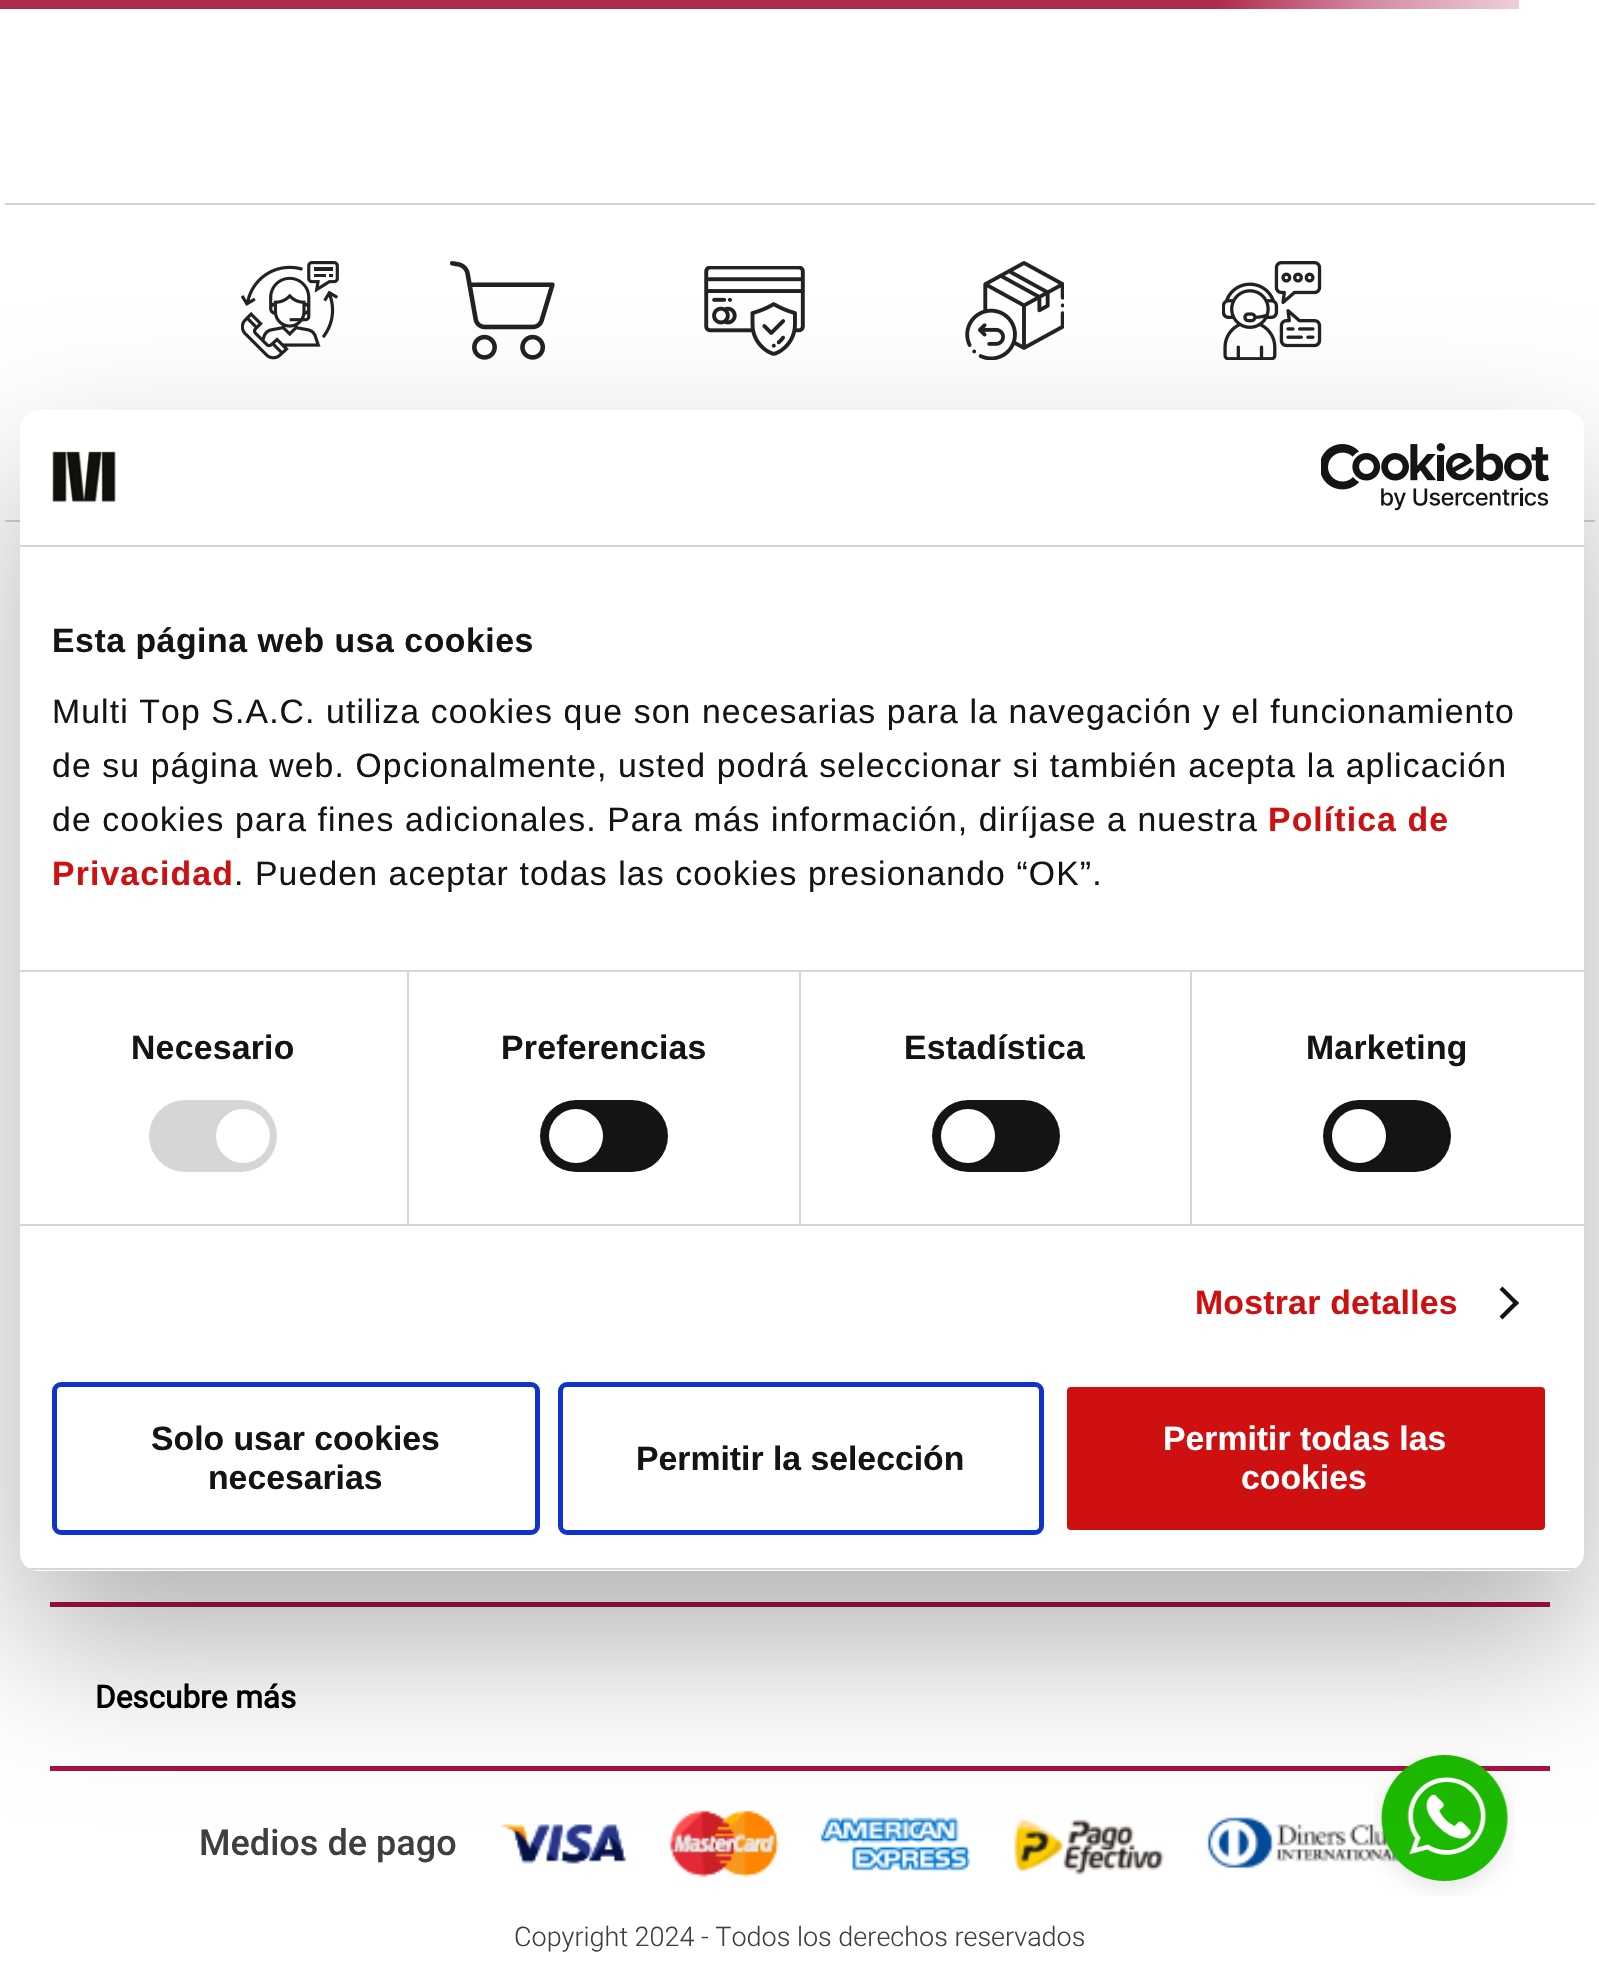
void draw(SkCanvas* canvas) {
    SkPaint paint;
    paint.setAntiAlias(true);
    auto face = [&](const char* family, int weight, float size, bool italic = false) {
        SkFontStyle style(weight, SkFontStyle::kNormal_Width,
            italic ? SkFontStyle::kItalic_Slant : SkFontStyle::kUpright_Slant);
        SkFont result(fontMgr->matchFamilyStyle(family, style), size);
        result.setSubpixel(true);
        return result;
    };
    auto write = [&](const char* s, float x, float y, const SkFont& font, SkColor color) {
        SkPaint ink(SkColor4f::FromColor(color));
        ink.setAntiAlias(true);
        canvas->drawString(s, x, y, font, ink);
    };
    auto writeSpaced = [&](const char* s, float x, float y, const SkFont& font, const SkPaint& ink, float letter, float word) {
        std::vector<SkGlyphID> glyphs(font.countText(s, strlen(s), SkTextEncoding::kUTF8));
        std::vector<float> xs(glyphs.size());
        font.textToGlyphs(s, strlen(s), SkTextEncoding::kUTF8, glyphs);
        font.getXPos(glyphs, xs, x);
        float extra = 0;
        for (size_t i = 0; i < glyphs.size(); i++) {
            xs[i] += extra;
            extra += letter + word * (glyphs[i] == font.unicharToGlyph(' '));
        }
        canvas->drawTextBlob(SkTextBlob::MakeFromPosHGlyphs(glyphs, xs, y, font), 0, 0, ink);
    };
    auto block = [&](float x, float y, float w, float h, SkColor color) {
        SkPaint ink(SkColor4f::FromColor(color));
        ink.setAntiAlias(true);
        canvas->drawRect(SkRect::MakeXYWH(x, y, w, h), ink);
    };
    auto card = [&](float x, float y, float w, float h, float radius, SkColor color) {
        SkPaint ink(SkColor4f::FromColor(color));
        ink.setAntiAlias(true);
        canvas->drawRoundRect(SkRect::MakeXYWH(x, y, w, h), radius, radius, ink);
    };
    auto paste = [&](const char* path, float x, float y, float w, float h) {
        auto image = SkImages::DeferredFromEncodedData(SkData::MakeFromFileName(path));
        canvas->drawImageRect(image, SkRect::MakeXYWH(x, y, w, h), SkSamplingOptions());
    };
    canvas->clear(SK_ColorWHITE);
    block(5, 520, 1590, 2, SkColorSetRGB(212, 212, 212));
    paste("pic3.png", 241, 261, 98, 99);
    paste("pic4.png", 450, 261, 105, 99);
    paste("pic5.png", 704, 266, 101, 90);
    paste("pic6.png", 965, 261, 99, 99);
    paste("pic7.png", 1222, 261, 100, 99);
    block(50, 1602, 1500, 5, SkColorSetRGB(167, 19, 62));
    block(50, 1766, 1500, 5, SkColorSetRGB(167, 19, 62));
    paste("pic8.png", 501, 1810, 899, 68);
    paste("pic9.png", 1374, 1754, 141, 142);
    paint.setColor(SkColorSetARGB(77, 0, 0, 0));
    paint.setMaskFilter(SkMaskFilter::MakeBlur(kNormal_SkBlurStyle, 76.5f));
    canvas->drawRoundRect(SkRect::MakeXYWH(20, 482, 1564, 1161), 18, 18, paint);
    paint.setMaskFilter(nullptr);
    card(20, 410, 1564, 1161, 18, SK_ColorWHITE);
    block(20, 545, 1564, 2, SkColorSetRGB(214, 214, 214));
    paste("pic1.png", 52, 451, 65, 52);
    paste("pic2.png", 1321, 443, 228, 68);
    block(20, 970, 1564, 2, SkColorSetRGB(214, 214, 214));
    auto kFont1 = face("Liberation Sans", 700, 33.75f);
    paint.setColor(SkColorSetRGB(20, 20, 20));
    writeSpaced("Esta página web usa cookies", 52, 652, kFont1, paint, 0.55f, 0);
    auto kFont2 = face("Liberation Sans", 400, 33.75f);
    writeSpaced("Multi Top S.A.C. utiliza cookies que son necesarias para la navegación y el funcionamiento", 52, 723, kFont2, paint, 1.12f, 0);
    writeSpaced("de su página web. Opcionalmente, usted podrá seleccionar si también acepta la aplicación", 52, 777, kFont2, paint, 1.12f, 0);
    writeSpaced("de cookies para fines adicionales. Para más información, diríjase a nuestra", 52, 831, kFont2, paint, 1.12f, 0);
    paint.setColor(SkColorSetRGB(207, 16, 16));
    writeSpaced("Política de", 1268, 831, kFont1, paint, 1.12f, 0);
    writeSpaced("Privacidad", 52, 885, kFont1, paint, 1.12f, 0);
    paint.setColor(SkColorSetRGB(20, 20, 20));
    writeSpaced(". Pueden aceptar todas las cookies presionando “OK”.", 234, 885, kFont2, paint, 1.12f, 0);
    block(20, 1224, 1564, 2, SkColorSetRGB(214, 214, 214));
    block(407, 972, 2, 252, SkColorSetRGB(214, 214, 214));
    writeSpaced("Necesario", 131, 1059, kFont1, paint, 0.25f, 0);
    card(149, 1100, 128, 72, 36, SkColorSetRGB(214, 214, 214));
    paint.setColor(SK_ColorWHITE);
    canvas->drawCircle(243, 1136, 27, paint);
    block(799, 972, 2, 252, SkColorSetRGB(214, 214, 214));
    paint.setColor(SkColorSetRGB(20, 20, 20));
    writeSpaced("Preferencias", 501, 1059, kFont1, paint, 0.25f, 0);
    card(540, 1100, 128, 72, 36, SkColorSetRGB(20, 20, 20));
    paint.setColor(SK_ColorWHITE);
    canvas->drawCircle(576, 1136, 27, paint);
    block(1190, 972, 2, 252, SkColorSetRGB(214, 214, 214));
    paint.setColor(SkColorSetRGB(20, 20, 20));
    writeSpaced("Estadística", 904, 1059, kFont1, paint, 0.25f, 0);
    card(932, 1100, 128, 72, 36, SkColorSetRGB(20, 20, 20));
    paint.setColor(SK_ColorWHITE);
    canvas->drawCircle(968, 1136, 27, paint);
    paint.setColor(SkColorSetRGB(20, 20, 20));
    writeSpaced("Marketing", 1306, 1059, kFont1, paint, 0.25f, 0);
    card(1323, 1100, 128, 72, 36, SkColorSetRGB(20, 20, 20));
    paint.setColor(SK_ColorWHITE);
    canvas->drawCircle(1359, 1136, 27, paint);
    paint.setColor(SkColorSetRGB(207, 16, 16));
    writeSpaced("Mostrar detalles", 1195, 1314, kFont1, paint, 0.25f, 0);
    paint.setColor(SkColorSetRGB(20, 20, 20));
    canvas->drawPath(SkPathBuilder().moveTo(1502.5f, 1286.5f).lineTo(1519, 1303).lineTo(1516, 1306).lineTo(1499.5f, 1289.5f).close().detach(), paint);
    canvas->drawPath(SkPathBuilder().moveTo(1516, 1300).lineTo(1519, 1303).lineTo(1502.5f, 1319.5f).lineTo(1499.5f, 1316.5f).close().detach(), paint);
    canvas->save();
    canvas->clipPath(SkPathBuilder().moveTo(38, 410).lineTo(1566, 410).cubicTo(1576, 410, 1584, 418, 1584, 428).lineTo(1584, 1553).cubicTo(1584, 1563, 1576, 1571, 1566, 1571).lineTo(38, 1571).cubicTo(28, 1571, 20, 1563, 20, 1553).lineTo(20, 428).cubicTo(20, 418, 28, 410, 38, 410).close().detach(), true);
    block(20, 1568, 1564, 2, SkColorSetRGB(214, 214, 214));
    canvas->restore();
    paint.setStyle(SkPaint::kStroke_Style);
    paint.setStrokeWidth(5);
    paint.setColor(SkColorSetRGB(16, 50, 207));
    canvas->drawRoundRect(SkRect::MakeXYWH(54.5f, 1384.5f, 483, 148), 6.5f, 6.5f, paint);
    write("Solo usar cookies", 151, 1450, kFont1, SkColorSetRGB(20, 20, 20));
    write("necesarias", 208, 1489, kFont1, SkColorSetRGB(20, 20, 20));
    canvas->drawRoundRect(SkRect::MakeXYWH(560.5f, 1384.5f, 481, 148), 6.5f, 6.5f, paint);
    write("Permitir la selección", 636, 1470, kFont1, SkColorSetRGB(20, 20, 20));
    paint.setStyle(SkPaint::kFill_Style);
    paint.setColor(SkColorSetRGB(207, 16, 16));
    canvas->drawRoundRect(SkRect::MakeXYWH(1064.5f, 1384.5f, 483, 148), 6.5f, 6.5f, paint);
    paint.setStyle(SkPaint::kStroke_Style);
    paint.setColor(SK_ColorWHITE);
    canvas->drawRoundRect(SkRect::MakeXYWH(1064.5f, 1384.5f, 483, 148), 6.5f, 6.5f, paint);
    write("Permitir todas las", 1163, 1450, kFont1, SK_ColorWHITE);
    write("cookies", 1241, 1489, kFont1, SK_ColorWHITE);
    paint.setStyle(SkPaint::kFill_Style);
    {
        const SkColor colors[] = {SkColorSetRGB(177, 42, 81), SkColorSetRGB(212, 137, 159), SkColorSetRGB(238, 208, 216)};
        const float stops[] = {0.8f, 0.9f, 1};
        const SkPoint ends[] = {{0, 4.5f}, {1520, 4.5f}};
        paint.setShader(SkGradientShader::MakeLinear(ends, colors, stops, 3, SkTileMode::kClamp));
        paint.setAlpha(255);
    }
    canvas->drawRect(SkRect::MakeXYWH(0, 0, 1519, 9), paint);
    block(5, 203, 1590, 2, SkColorSetRGB(212, 212, 212));
    auto kFont3 = face("Roboto", 700, 31.5f);
    write("Descubre más", 95, 1708, kFont3, SK_ColorBLACK);
    auto kFont4 = face("Roboto", 500, 36);
    write("Medios de pago", 199, 1855, kFont4, SkColorSetRGB(63, 63, 64));
    auto kFont5 = face("Roboto", 300, 27);
    write("Copyright 2024 - Todos los derechos reservados", 514, 1946, kFont5, SkColorSetRGB(63, 63, 64));
}
